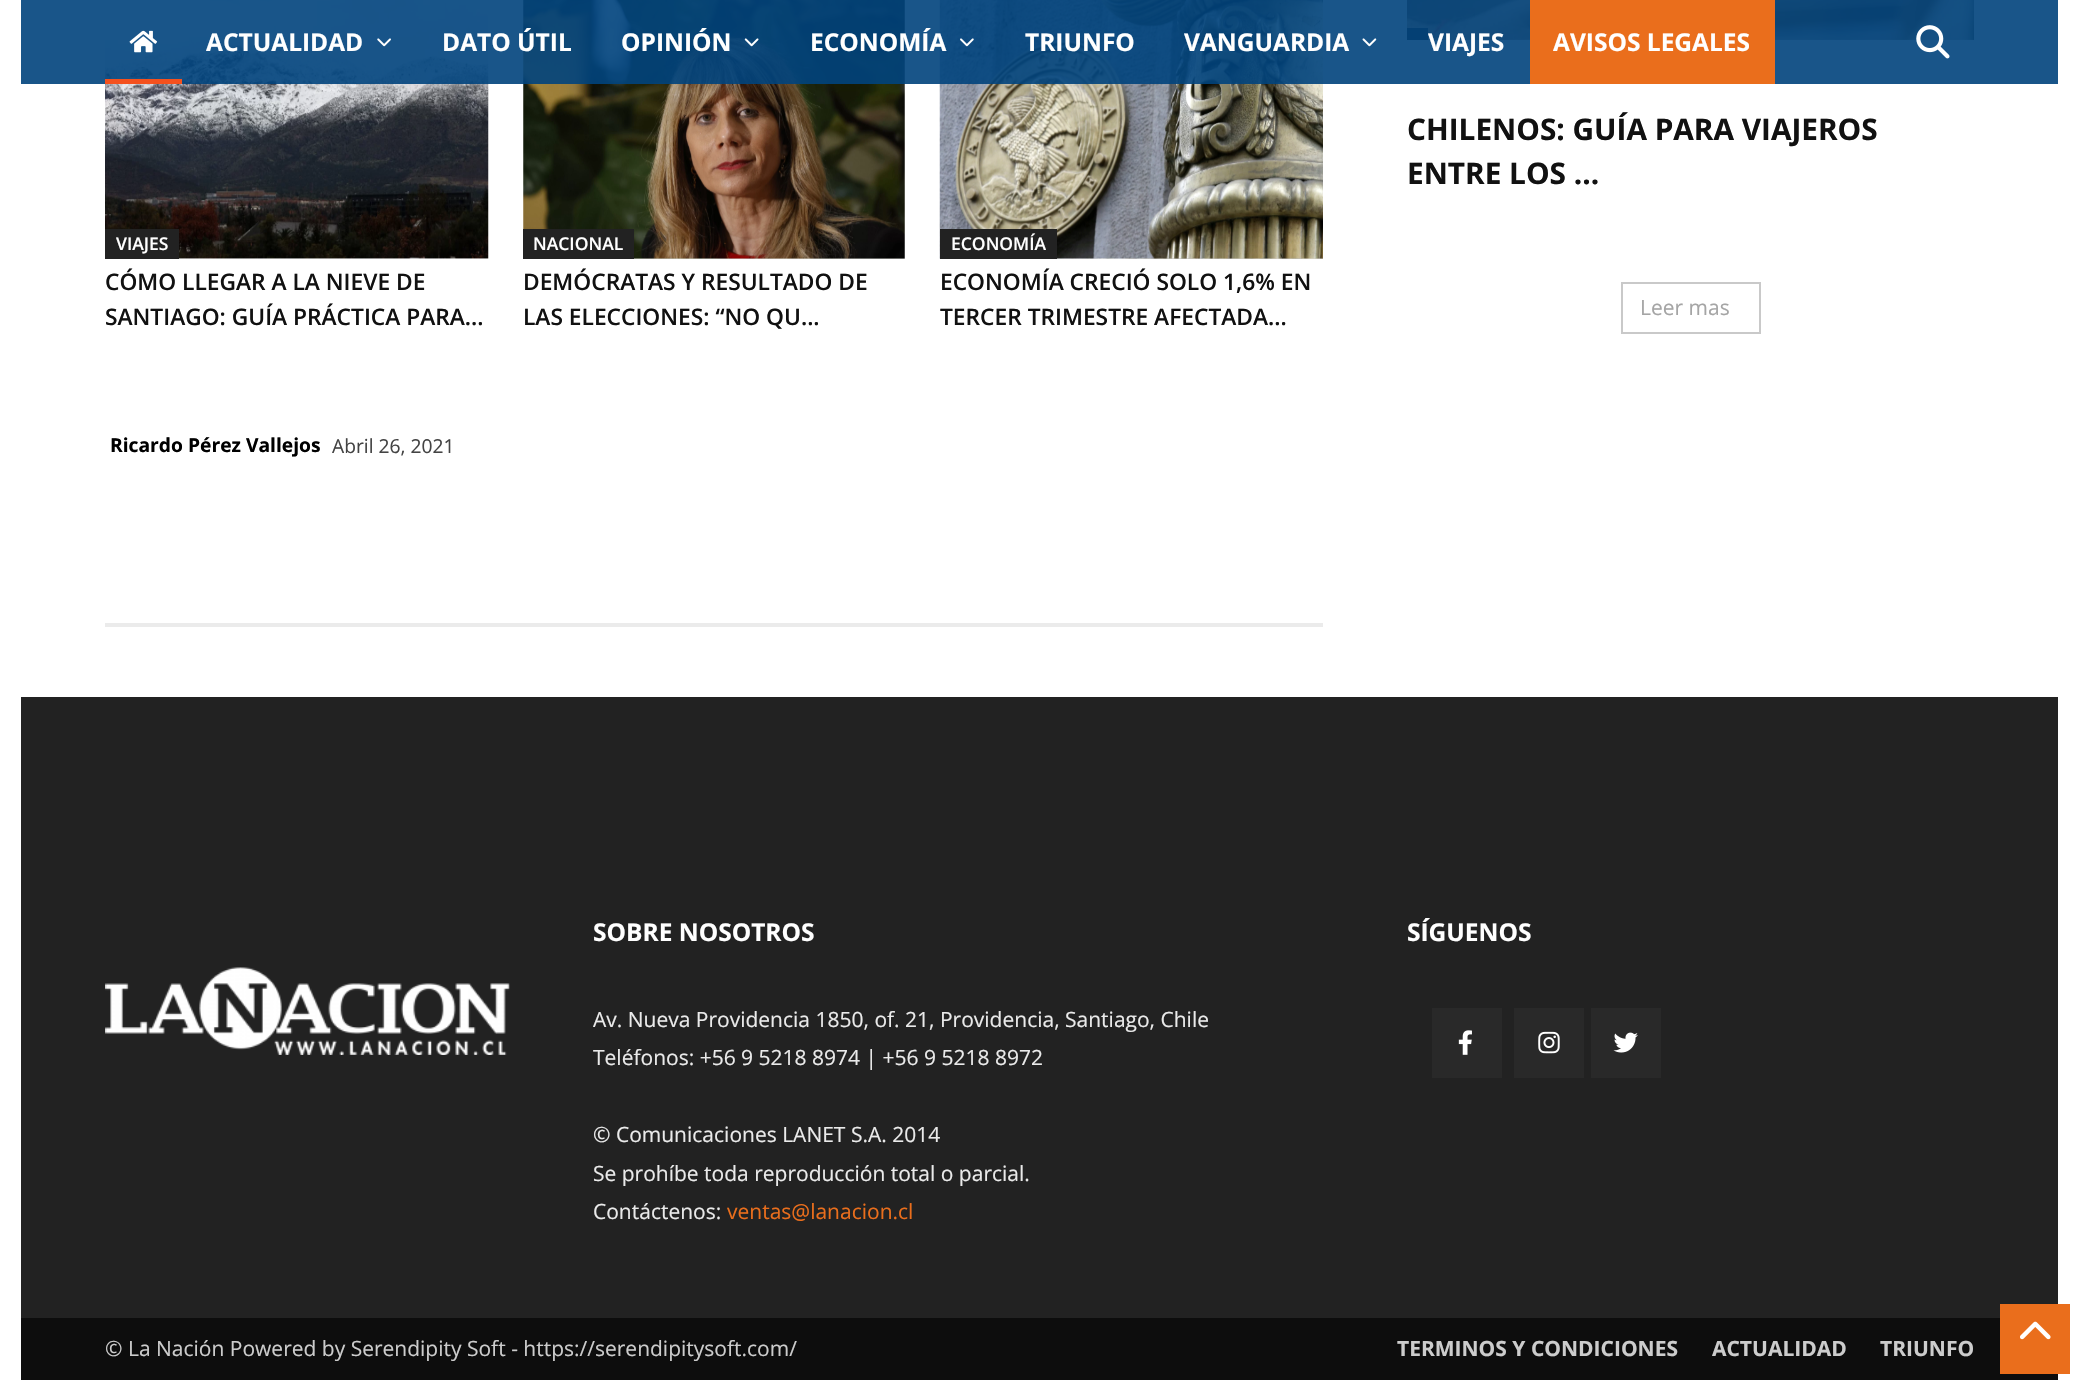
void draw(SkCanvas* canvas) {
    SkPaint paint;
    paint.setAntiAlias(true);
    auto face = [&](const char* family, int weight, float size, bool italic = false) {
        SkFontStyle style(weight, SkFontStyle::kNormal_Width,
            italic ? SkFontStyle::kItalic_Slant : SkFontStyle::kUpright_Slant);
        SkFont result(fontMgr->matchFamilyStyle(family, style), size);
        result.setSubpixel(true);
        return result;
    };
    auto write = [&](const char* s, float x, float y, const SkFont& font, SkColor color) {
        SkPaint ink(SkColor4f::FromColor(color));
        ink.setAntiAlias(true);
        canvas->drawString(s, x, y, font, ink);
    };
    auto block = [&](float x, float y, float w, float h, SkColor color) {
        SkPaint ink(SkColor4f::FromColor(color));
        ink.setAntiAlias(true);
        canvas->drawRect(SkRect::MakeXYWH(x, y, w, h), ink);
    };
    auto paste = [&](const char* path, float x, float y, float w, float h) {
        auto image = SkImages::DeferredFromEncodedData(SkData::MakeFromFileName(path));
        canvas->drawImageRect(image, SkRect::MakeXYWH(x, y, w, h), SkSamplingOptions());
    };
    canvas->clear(SK_ColorWHITE);
    paste("pic7.png", 105, 0, 384, 259);
    paste("pic8.png", 523, 0, 382, 259);
    paste("pic9.png", 939, 0, 384, 259);
    paste("pic10.png", 1407, 0, 567, 40);
    block(1407, 28, 21, 12, SkColorSetRGB(34, 34, 34));
    block(21, 0, 2037, 84, SkColorSetARGB(230, 0, 66, 124));
    paste("pic1.png", 129, 30, 29, 23);
    block(105, 79, 77, 5, SkColorSetRGB(244, 81, 30));
    auto kFont1 = face("Open Sans", 700, 24.5f);
    write("ACTUALIDAD", 206, 51, kFont1, SK_ColorWHITE);
    paste("pic2.png", 377, 38, 14, 9);
    write("DATO ÚTIL", 442, 51, kFont1, SK_ColorWHITE);
    write("OPINIÓN", 621, 51, kFont1, SK_ColorWHITE);
    paste("pic3.png", 744, 38, 15, 9);
    write("ECONOMÍA", 810, 51, kFont1, SK_ColorWHITE);
    paste("pic4.png", 960, 38, 14, 9);
    write("TRIUNFO", 1025, 51, kFont1, SK_ColorWHITE);
    write("VANGUARDIA", 1184, 51, kFont1, SK_ColorWHITE);
    paste("pic5.png", 1362, 38, 15, 9);
    write("VIAJES", 1428, 51, kFont1, SK_ColorWHITE);
    block(1530, 0, 245, 84, SkColorSetRGB(234, 110, 28));
    write("AVISOS LEGALES", 1553, 51, kFont1, SK_ColorWHITE);
    paste("pic6.png", 1916, 25, 34, 34);
    block(105, 229, 74, 30, SkColorSetRGB(34, 34, 34));
    auto kFont2 = face("Open Sans", 600, 17.5f);
    write("VIAJES", 116, 250, kFont2, SK_ColorWHITE);
    auto kFont3 = face("Open Sans", 600, 22.75f);
    write("CÓMO LLEGAR A LA NIEVE DE", 105, 290, kFont3, SkColorSetRGB(17, 17, 17));
    write("SANTIAGO: GUÍA PRÁCTICA PARA...", 105, 325, kFont3, SkColorSetRGB(17, 17, 17));
    block(523, 229, 111, 30, SkColorSetRGB(34, 34, 34));
    write("NACIONAL", 533, 250, kFont2, SK_ColorWHITE);
    write("DEMÓCRATAS Y RESULTADO DE", 523, 290, kFont3, SkColorSetRGB(17, 17, 17));
    write("LAS ELECCIONES: “NO QU...", 523, 325, kFont3, SkColorSetRGB(17, 17, 17));
    block(940, 229, 117, 30, SkColorSetRGB(34, 34, 34));
    write("ECONOMÍA", 951, 250, kFont2, SK_ColorWHITE);
    write("ECONOMÍA CRECIÓ SOLO 1,6% EN", 940, 290, kFont3, SkColorSetRGB(17, 17, 17));
    write("TERCER TRIMESTRE AFECTADA...", 940, 325, kFont3, SkColorSetRGB(17, 17, 17));
    auto kFont4 = face("Open Sans", 700, 29.75f);
    write("CHILENOS: GUÍA PARA VIAJEROS", 1407, 140, kFont4, SkColorSetRGB(17, 17, 17));
    write("ENTRE LOS ...", 1407, 184, kFont4, SkColorSetRGB(17, 17, 17));
    paint.setStyle(SkPaint::kStroke_Style);
    paint.setStrokeWidth(2);
    paint.setColor(SkColorSetRGB(201, 201, 201));
    canvas->drawRect(SkRect::MakeXYWH(1622, 283, 138, 50), paint);
    auto kFont5 = face("Open Sans", 400, 21);
    write("Leer mas", 1640, 315, kFont5, SkColorSetRGB(165, 165, 165));
    auto kFont6 = face("Open Sans", 700, 19.25f);
    write("Ricardo Pérez Vallejos", 110, 452, kFont6, SK_ColorBLACK);
    auto kFont7 = face("Open Sans", 400, 19.25f);
    write("Abril 26, 2021", 332, 453, kFont7, SkColorSetRGB(68, 68, 68));
    block(105, 623, 1218, 4, SkColorSetRGB(235, 235, 235));
    block(21, 697, 2037, 621, SkColorSetRGB(34, 34, 34));
    paste("pic11.png", 105, 967, 405, 88);
    write("SOBRE NOSOTROS", 593, 941, kFont1, SK_ColorWHITE);
    write("Av. Nueva Providencia 1850, of. 21, Providencia, Santiago, Chile", 593, 1027, kFont5, SkColorSetRGB(234, 234, 234));
    write("Teléfonos: +56 9 5218 8974 | +56 9 5218 8972", 593, 1065, kFont5, SkColorSetRGB(234, 234, 234));
    write("© Comunicaciones LANET S.A. 2014", 593, 1142, kFont5, SkColorSetRGB(234, 234, 234));
    write("Se prohíbe toda reproducción total o parcial.", 593, 1181, kFont5, SkColorSetRGB(234, 234, 234));
    write("Contáctenos:", 593, 1219, kFont5, SkColorSetRGB(234, 234, 234));
    write("ventas@lanacion.cl", 727, 1219, kFont5, SkColorSetRGB(234, 110, 28));
    write("SÍGUENOS", 1407, 941, kFont1, SK_ColorWHITE);
    block(1432, 1008, 70, 70, SkColorSetRGB(41, 41, 41));
    paste("pic12.png", 1458, 1030, 14, 25);
    block(1514, 1008, 70, 70, SkColorSetRGB(41, 41, 41));
    paste("pic13.png", 1538, 1031, 22, 23);
    block(1591, 1008, 70, 70, SkColorSetRGB(41, 41, 41));
    paste("pic14.png", 1613, 1032, 25, 21);
    block(21, 1318, 2037, 62, SkColorSetRGB(13, 13, 13));
    write("© La Nación Powered by Serendipity Soft - https://serendipitysoft.com/", 105, 1356, kFont5, SkColorSetRGB(204, 204, 204));
    auto kFont8 = face("Open Sans", 700, 21);
    write("TERMINOS Y CONDICIONES", 1397, 1356, kFont8, SkColorSetRGB(204, 204, 204));
    write("ACTUALIDAD", 1712, 1356, kFont8, SkColorSetRGB(204, 204, 204));
    write("TRIUNFO", 1880, 1356, kFont8, SkColorSetRGB(204, 204, 204));
    block(2000, 1304, 70, 70, SkColorSetRGB(234, 110, 28));
    paste("pic15.png", 2020, 1321, 31, 19);
}
